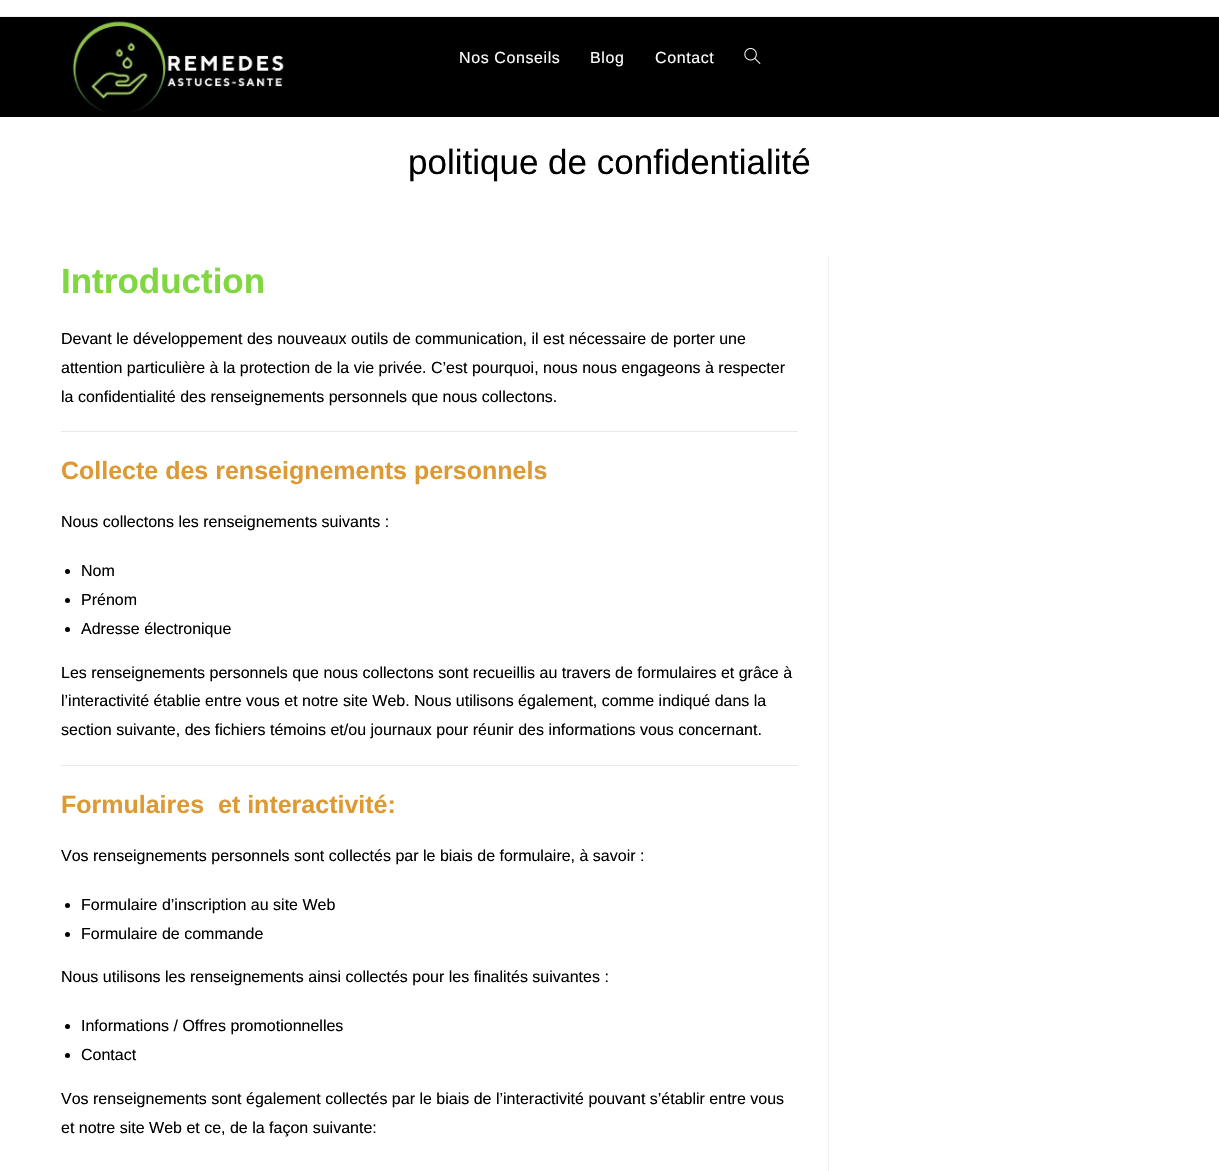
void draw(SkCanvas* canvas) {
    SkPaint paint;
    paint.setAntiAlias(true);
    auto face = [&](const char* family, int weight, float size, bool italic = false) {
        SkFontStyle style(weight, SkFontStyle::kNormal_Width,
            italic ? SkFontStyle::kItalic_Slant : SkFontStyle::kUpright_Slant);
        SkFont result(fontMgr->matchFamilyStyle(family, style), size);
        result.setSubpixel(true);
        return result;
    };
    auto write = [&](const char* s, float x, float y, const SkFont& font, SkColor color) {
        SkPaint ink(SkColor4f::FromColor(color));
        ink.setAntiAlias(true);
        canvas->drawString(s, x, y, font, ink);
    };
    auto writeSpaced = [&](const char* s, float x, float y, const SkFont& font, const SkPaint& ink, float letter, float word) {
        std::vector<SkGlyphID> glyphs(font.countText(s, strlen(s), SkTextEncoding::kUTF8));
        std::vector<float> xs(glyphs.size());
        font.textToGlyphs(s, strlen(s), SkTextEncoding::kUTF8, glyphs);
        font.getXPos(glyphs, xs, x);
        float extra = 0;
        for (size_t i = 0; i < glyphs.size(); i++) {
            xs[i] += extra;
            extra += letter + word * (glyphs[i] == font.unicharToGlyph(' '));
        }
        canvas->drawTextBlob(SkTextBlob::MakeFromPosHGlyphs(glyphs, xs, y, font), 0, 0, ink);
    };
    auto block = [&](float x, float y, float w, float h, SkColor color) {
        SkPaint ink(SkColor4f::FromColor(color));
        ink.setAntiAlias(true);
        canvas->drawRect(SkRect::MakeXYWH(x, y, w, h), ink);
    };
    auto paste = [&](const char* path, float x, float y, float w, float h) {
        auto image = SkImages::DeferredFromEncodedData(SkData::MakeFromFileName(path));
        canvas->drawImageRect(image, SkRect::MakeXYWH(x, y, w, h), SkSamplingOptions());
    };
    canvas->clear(SK_ColorWHITE);
    block(0, 16, 1219, 1, SkColorSetRGB(241, 241, 241));
    block(0, 17, 1219, 100, SK_ColorBLACK);
    paste("pic1.png", 69, 18, 215, 95);
    auto kFont1 = face("Liberation Sans", 400, 16);
    paint.setColor(SK_ColorWHITE);
    writeSpaced("Nos Conseils", 459, 63, kFont1, paint, 0.6f, 0);
    writeSpaced("Blog", 590, 63, kFont1, paint, 0.6f, 0);
    writeSpaced("Contact", 655, 63, kFont1, paint, 0.6f, 0);
    paste("pic2.png", 744, 48, 17, 16);
    auto kFont2 = face("Liberation Sans", 400, 35);
    write("politique de confidentialité", 408, 174, kFont2, SK_ColorBLACK);
    block(828, 256, 1, 915, SkColorSetRGB(241, 241, 241));
    auto kFont3 = face("Liberation Sans", 700, 35);
    write("Introduction", 61, 293, kFont3, SkColorSetRGB(129, 215, 66));
    write("Devant le développement des nouveaux outils de communication, il est nécessaire de porter une", 61, 344, kFont1, SK_ColorBLACK);
    write("attention particulière à la protection de la vie privée. C’est pourquoi, nous nous engageons à respecter", 61, 373, kFont1, SK_ColorBLACK);
    write("la confidentialité des renseignements personnels que nous collectons.", 61, 402, kFont1, SK_ColorBLACK);
    block(61, 431, 737, 1, SkColorSetRGB(233, 233, 233));
    auto kFont4 = face("Liberation Sans", 700, 25);
    write("Collecte des renseignements personnels", 61, 479, kFont4, SkColorSetRGB(221, 153, 51));
    write("Nous collectons les renseignements suivants :", 61, 527, kFont1, SK_ColorBLACK);
    paint.setColor(SK_ColorBLACK);
    canvas->drawCircle(67.5f, 571.5f, 2.5f, paint);
    write("Nom", 81, 576, kFont1, SK_ColorBLACK);
    canvas->drawCircle(67.5f, 600.5f, 2.5f, paint);
    write("Prénom", 81, 605, kFont1, SK_ColorBLACK);
    canvas->drawCircle(67.5f, 629.5f, 2.5f, paint);
    write("Adresse électronique", 81, 634, kFont1, SK_ColorBLACK);
    write("Les renseignements personnels que nous collectons sont recueillis au travers de formulaires et grâce à", 61, 678, kFont1, SK_ColorBLACK);
    write("l’interactivité établie entre vous et notre site Web. Nous utilisons également, comme indiqué dans la", 61, 706, kFont1, SK_ColorBLACK);
    write("section suivante, des fichiers témoins et/ou journaux pour réunir des informations vous concernant.", 61, 735, kFont1, SK_ColorBLACK);
    block(61, 765, 737, 1, SkColorSetRGB(233, 233, 233));
    write("Formulaires  et interactivité:", 61, 813, kFont4, SkColorSetRGB(221, 153, 51));
    write("Vos renseignements personnels sont collectés par le biais de formulaire, à savoir :", 61, 861, kFont1, SK_ColorBLACK);
    canvas->drawCircle(67.5f, 905.5f, 2.5f, paint);
    write("Formulaire d’inscription au site Web", 81, 910, kFont1, SK_ColorBLACK);
    canvas->drawCircle(67.5f, 934.5f, 2.5f, paint);
    write("Formulaire de commande", 81, 939, kFont1, SK_ColorBLACK);
    write("Nous utilisons les renseignements ainsi collectés pour les finalités suivantes :", 61, 982, kFont1, SK_ColorBLACK);
    canvas->drawCircle(67.5f, 1026.5f, 2.5f, paint);
    write("Informations / Offres promotionnelles", 81, 1031, kFont1, SK_ColorBLACK);
    canvas->drawCircle(67.5f, 1055.5f, 2.5f, paint);
    write("Contact", 81, 1060, kFont1, SK_ColorBLACK);
    write("Vos renseignements sont également collectés par le biais de l’interactivité pouvant s’établir entre vous", 61, 1104, kFont1, SK_ColorBLACK);
    write("et notre site Web et ce, de la façon suivante:", 61, 1133, kFont1, SK_ColorBLACK);
}
